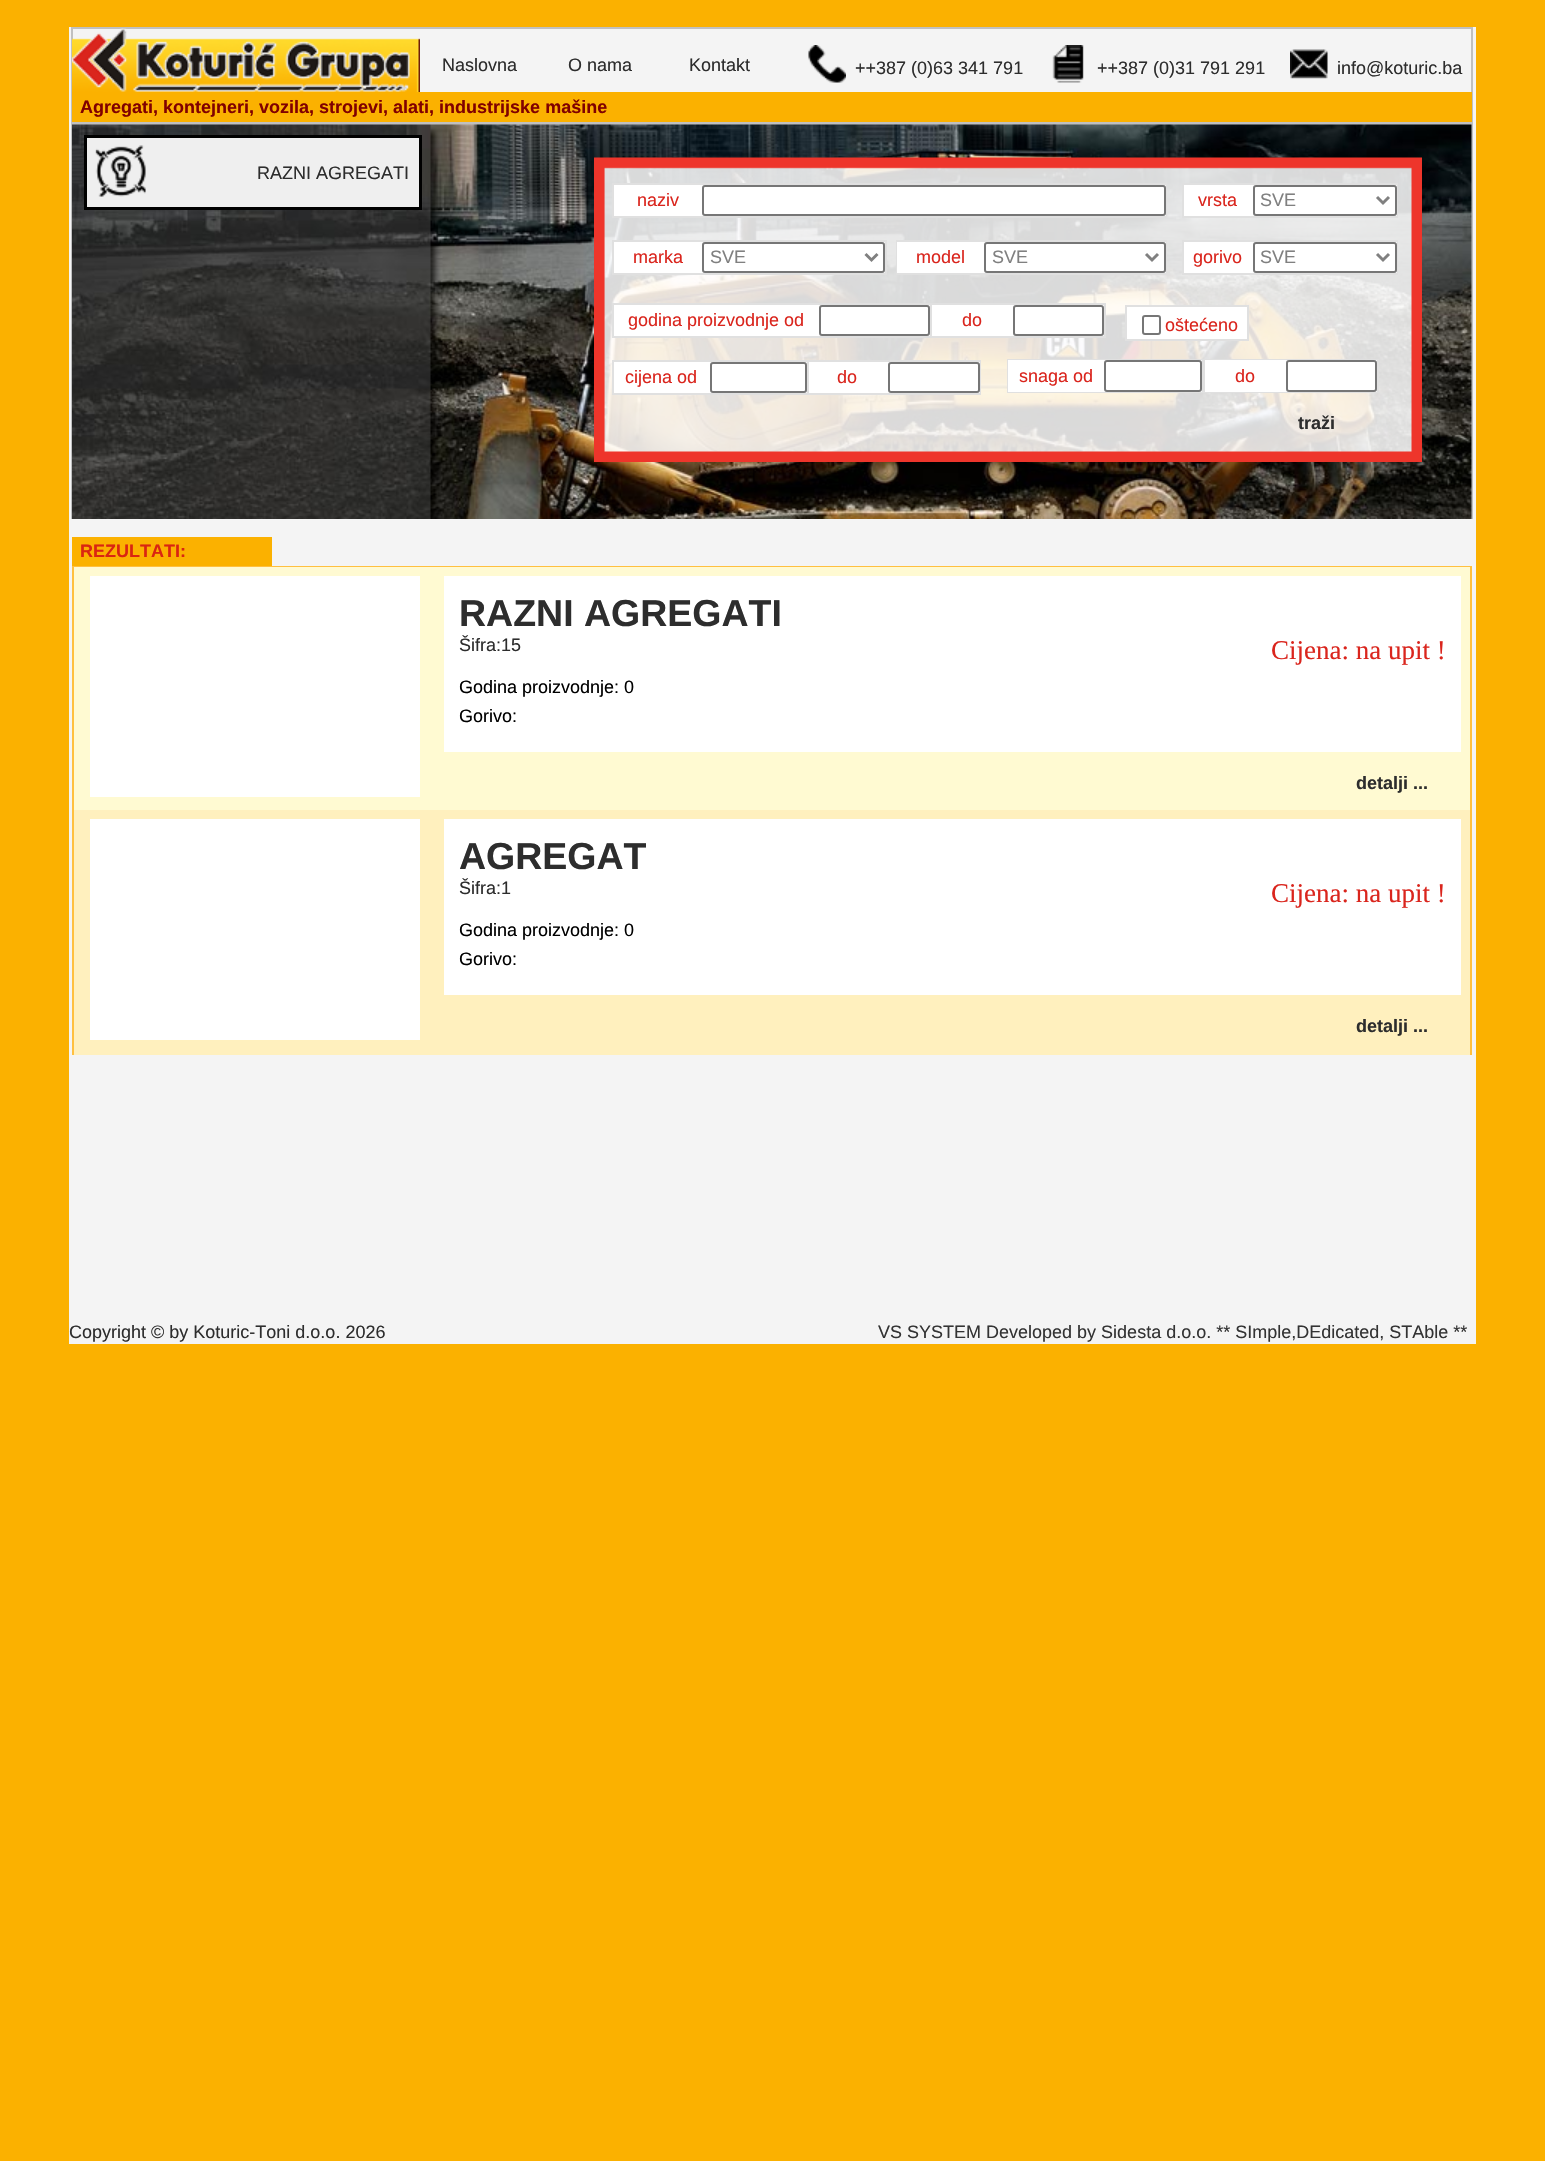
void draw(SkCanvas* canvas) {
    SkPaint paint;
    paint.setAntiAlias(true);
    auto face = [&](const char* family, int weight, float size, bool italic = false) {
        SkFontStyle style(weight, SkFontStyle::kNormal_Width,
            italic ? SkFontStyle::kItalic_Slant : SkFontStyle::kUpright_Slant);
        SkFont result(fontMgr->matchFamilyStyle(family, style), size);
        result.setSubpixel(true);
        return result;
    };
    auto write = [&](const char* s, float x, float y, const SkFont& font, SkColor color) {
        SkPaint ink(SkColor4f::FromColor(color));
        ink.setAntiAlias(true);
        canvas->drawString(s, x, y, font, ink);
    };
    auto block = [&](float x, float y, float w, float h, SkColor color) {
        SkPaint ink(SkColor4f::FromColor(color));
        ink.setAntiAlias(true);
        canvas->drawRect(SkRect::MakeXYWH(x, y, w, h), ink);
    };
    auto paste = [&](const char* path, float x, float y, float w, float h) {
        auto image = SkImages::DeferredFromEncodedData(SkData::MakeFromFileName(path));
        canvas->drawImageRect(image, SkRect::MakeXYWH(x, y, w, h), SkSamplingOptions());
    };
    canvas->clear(SkColorSetRGB(251, 177, 0));
    block(69, 27, 1407, 1317, SkColorSetRGB(244, 244, 244));
    paint.setStyle(SkPaint::kStroke_Style);
    paint.setStrokeWidth(2);
    paint.setColor(SkColorSetRGB(192, 192, 192));
    canvas->drawRect(SkRect::MakeXYWH(72, 28, 1400, 94), paint);
    paste("pic1.png", 72, 28, 348, 64);
    auto kFont1 = face("Liberation Sans", 400, 18);
    write("Naslovna", 442, 71, kFont1, SkColorSetRGB(45, 45, 45));
    write("O nama", 568, 71, kFont1, SkColorSetRGB(45, 45, 45));
    write("Kontakt", 689, 71, kFont1, SkColorSetRGB(45, 45, 45));
    paste("pic2.png", 808, 45, 38, 38);
    write("++387 (0)63 341 791", 855, 74, kFont1, SkColorSetRGB(45, 45, 45));
    paste("pic3.png", 1052, 45, 32, 38);
    write("++387 (0)31 791 291", 1097, 74, kFont1, SkColorSetRGB(45, 45, 45));
    paste("pic4.png", 1290, 49, 38, 30);
    write("info@koturic.ba", 1337, 74, kFont1, SkColorSetRGB(45, 45, 45));
    block(72, 92, 1400, 30, SkColorSetRGB(251, 177, 0));
    auto kFont2 = face("Liberation Sans", 700, 18);
    write("Agregati, kontejneri, vozila, strojevi, alati, industrijske mašine", 80, 113, kFont2, SkColorSetRGB(128, 0, 0));
    canvas->save();
    canvas->clipRect(SkRect::MakeXYWH(71, 123, 1402, 396));
    canvas->drawRect(SkRect::MakeXYWH(72, 124, 1400, 397), paint);
    canvas->restore();
    paste("pic5.png", 72, 124, 1400, 395);
    paint.setStyle(SkPaint::kFill_Style);
    paint.setColor(SkColorSetRGB(239, 239, 239));
    canvas->drawRect(SkRect::MakeXYWH(85.5f, 136.5f, 335, 72), paint);
    paint.setStyle(SkPaint::kStroke_Style);
    paint.setStrokeWidth(3);
    paint.setColor(SK_ColorBLACK);
    canvas->drawRect(SkRect::MakeXYWH(85.5f, 136.5f, 335, 72), paint);
    paste("pic6.png", 95, 145, 51, 52);
    write("RAZNI AGREGATI", 257, 179, kFont1, SkColorSetRGB(45, 45, 45));
    paste("pic7.png", 594, 157, 828, 305);
    paint.setStrokeWidth(2);
    paint.setColor(SkColorSetRGB(224, 224, 224));
    canvas->drawRect(SkRect::MakeXYWH(613, 184, 553, 33), paint);
    block(614, 185, 552, 31, SK_ColorWHITE);
    write("naziv", 637, 206, kFont1, SkColorSetRGB(218, 37, 29));
    paint.setColor(SkColorSetRGB(118, 118, 118));
    canvas->drawRoundRect(SkRect::MakeXYWH(703, 186, 462, 29), 2, 2, paint);
    paint.setColor(SkColorSetRGB(224, 224, 224));
    canvas->drawRect(SkRect::MakeXYWH(1183, 184, 214, 33), paint);
    block(1184, 185, 213, 31, SK_ColorWHITE);
    write("vrsta", 1198, 206, kFont1, SkColorSetRGB(218, 37, 29));
    paint.setColor(SkColorSetRGB(118, 118, 118));
    canvas->drawRoundRect(SkRect::MakeXYWH(1254, 186, 142, 29), 2, 2, paint);
    paint.setStrokeWidth(3);
    paint.setColor(SkColorSetRGB(128, 128, 128));
    canvas->drawPath(SkPathBuilder().moveTo(1377, 197).lineTo(1383, 203).lineTo(1389, 197).detach(), paint);
    write("SVE", 1260, 206, kFont1, SkColorSetRGB(128, 128, 128));
    paint.setStrokeWidth(2);
    paint.setColor(SkColorSetRGB(224, 224, 224));
    canvas->drawRect(SkRect::MakeXYWH(613, 241, 273, 33), paint);
    block(614, 242, 271, 31, SK_ColorWHITE);
    write("marka", 633, 263, kFont1, SkColorSetRGB(218, 37, 29));
    paint.setColor(SkColorSetRGB(118, 118, 118));
    canvas->drawRoundRect(SkRect::MakeXYWH(703, 243, 181, 29), 2, 2, paint);
    paint.setStrokeWidth(3);
    paint.setColor(SkColorSetRGB(128, 128, 128));
    canvas->drawPath(SkPathBuilder().moveTo(865.5f, 254).lineTo(871.5f, 260).lineTo(877.5f, 254).detach(), paint);
    write("SVE", 710, 263, kFont1, SkColorSetRGB(128, 128, 128));
    paint.setStrokeWidth(2);
    paint.setColor(SkColorSetRGB(224, 224, 224));
    canvas->drawRect(SkRect::MakeXYWH(897, 241, 269, 33), paint);
    block(897, 242, 269, 31, SK_ColorWHITE);
    write("model", 916, 263, kFont1, SkColorSetRGB(218, 37, 29));
    paint.setColor(SkColorSetRGB(118, 118, 118));
    canvas->drawRoundRect(SkRect::MakeXYWH(985, 243, 180, 29), 2, 2, paint);
    paint.setStrokeWidth(3);
    paint.setColor(SkColorSetRGB(128, 128, 128));
    canvas->drawPath(SkPathBuilder().moveTo(1146, 254).lineTo(1152, 260).lineTo(1158, 254).detach(), paint);
    write("SVE", 992, 263, kFont1, SkColorSetRGB(128, 128, 128));
    paint.setStrokeWidth(2);
    paint.setColor(SkColorSetRGB(224, 224, 224));
    canvas->drawRect(SkRect::MakeXYWH(1183, 241, 214, 33), paint);
    block(1184, 242, 213, 31, SK_ColorWHITE);
    write("gorivo", 1193, 263, kFont1, SkColorSetRGB(218, 37, 29));
    paint.setColor(SkColorSetRGB(118, 118, 118));
    canvas->drawRoundRect(SkRect::MakeXYWH(1254, 243, 142, 29), 2, 2, paint);
    paint.setStrokeWidth(3);
    paint.setColor(SkColorSetRGB(128, 128, 128));
    canvas->drawPath(SkPathBuilder().moveTo(1377, 254).lineTo(1383, 260).lineTo(1389, 254).detach(), paint);
    write("SVE", 1260, 263, kFont1, SkColorSetRGB(128, 128, 128));
    paint.setStrokeWidth(2);
    paint.setColor(SkColorSetRGB(224, 224, 224));
    canvas->drawRect(SkRect::MakeXYWH(931, 304, 174, 33), paint);
    canvas->drawRect(SkRect::MakeXYWH(613, 304, 318, 33), paint);
    block(614, 305, 316, 31, SK_ColorWHITE);
    write("godina proizvodnje od", 628, 326, kFont1, SkColorSetRGB(218, 37, 29));
    paint.setColor(SkColorSetRGB(118, 118, 118));
    canvas->drawRoundRect(SkRect::MakeXYWH(820, 306, 109, 29), 2, 2, paint);
    block(932, 305, 172, 31, SK_ColorWHITE);
    write("do", 962, 326, kFont1, SkColorSetRGB(218, 37, 29));
    canvas->drawRoundRect(SkRect::MakeXYWH(1014, 306, 89, 29), 2, 2, paint);
    block(1127, 307, 120, 32, SK_ColorWHITE);
    block(1125, 305, 123, 2, SkColorSetRGB(224, 224, 224));
    block(1247, 305, 2, 36, SkColorSetRGB(224, 224, 224));
    block(1125, 339, 123, 2, SkColorSetRGB(224, 224, 224));
    block(1125, 305, 2, 36, SkColorSetRGB(224, 224, 224));
    canvas->drawRoundRect(SkRect::MakeXYWH(1143, 316, 17, 18), 2, 2, paint);
    write("oštećeno", 1165, 331, kFont1, SkColorSetRGB(218, 37, 29));
    paint.setColor(SkColorSetRGB(224, 224, 224));
    canvas->drawRect(SkRect::MakeXYWH(807, 361, 173, 33), paint);
    canvas->drawRect(SkRect::MakeXYWH(613, 361, 195, 33), paint);
    block(614, 362, 193, 31, SK_ColorWHITE);
    write("cijena od", 625, 383, kFont1, SkColorSetRGB(218, 37, 29));
    paint.setColor(SkColorSetRGB(118, 118, 118));
    canvas->drawRoundRect(SkRect::MakeXYWH(711, 363, 95, 29), 2, 2, paint);
    block(809, 362, 171, 31, SK_ColorWHITE);
    write("do", 837, 383, kFont1, SkColorSetRGB(218, 37, 29));
    canvas->drawRoundRect(SkRect::MakeXYWH(889, 363, 90, 29), 2, 2, paint);
    paint.setColor(SkColorSetRGB(224, 224, 224));
    canvas->drawRect(SkRect::MakeXYWH(1008, 360, 194, 32), paint);
    block(1008, 360, 194, 32, SK_ColorWHITE);
    write("snaga od", 1019, 382, kFont1, SkColorSetRGB(218, 37, 29));
    paint.setColor(SkColorSetRGB(118, 118, 118));
    canvas->drawRoundRect(SkRect::MakeXYWH(1105, 361, 96, 30), 2, 2, paint);
    paint.setColor(SkColorSetRGB(224, 224, 224));
    canvas->drawRect(SkRect::MakeXYWH(1204, 360, 174, 32), paint);
    block(1205, 360, 172, 32, SK_ColorWHITE);
    write("do", 1235, 382, kFont1, SkColorSetRGB(218, 37, 29));
    paint.setColor(SkColorSetRGB(118, 118, 118));
    canvas->drawRoundRect(SkRect::MakeXYWH(1287, 361, 89, 30), 2, 2, paint);
    write("traži", 1298, 429, kFont2, SkColorSetRGB(45, 45, 45));
    block(72, 537, 200, 29, SkColorSetRGB(251, 177, 0));
    write("REZULTATI:", 80, 557, kFont2, SkColorSetRGB(218, 37, 17));
    paint.setColor(SkColorSetRGB(255, 192, 64));
    canvas->drawRect(SkRect::MakeXYWH(73, 567, 1398, 487), paint);
    block(74, 567, 1396, 243, SkColorSetRGB(255, 250, 210));
    block(90, 576, 330, 221, SK_ColorWHITE);
    paint.setStrokeWidth(15);
    paint.setColor(SK_ColorWHITE);
    canvas->drawRect(SkRect::MakeXYWH(451.5f, 583.5f, 1002, 161), paint);
    block(459, 591, 987, 146, SK_ColorWHITE);
    auto kFont3 = face("Liberation Sans", 700, 37.5f);
    write("RAZNI AGREGATI", 459, 626, kFont3, SkColorSetRGB(45, 45, 45));
    write("Šifra:15", 459, 651, kFont1, SkColorSetRGB(45, 45, 45));
    auto kFont4 = face("Liberation Serif", 400, 27);
    write("Cijena: na upit !", 1271, 659, kFont4, SkColorSetRGB(218, 37, 29));
    write("Godina proizvodnje: 0", 459, 693, kFont1, SK_ColorBLACK);
    write("Gorivo:", 459, 722, kFont1, SK_ColorBLACK);
    write("detalji ...", 1356, 789, kFont2, SkColorSetRGB(45, 45, 45));
    block(74, 810, 1396, 245, SkColorSetRGB(255, 240, 190));
    block(90, 819, 330, 221, SK_ColorWHITE);
    canvas->drawRect(SkRect::MakeXYWH(451.5f, 826.5f, 1002, 161), paint);
    block(459, 834, 987, 146, SK_ColorWHITE);
    write("AGREGAT", 459, 869, kFont3, SkColorSetRGB(45, 45, 45));
    write("Šifra:1", 459, 894, kFont1, SkColorSetRGB(45, 45, 45));
    write("Cijena: na upit !", 1271, 902, kFont4, SkColorSetRGB(218, 37, 29));
    write("Godina proizvodnje: 0", 459, 936, kFont1, SK_ColorBLACK);
    write("Gorivo:", 459, 965, kFont1, SK_ColorBLACK);
    write("detalji ...", 1356, 1032, kFont2, SkColorSetRGB(45, 45, 45));
    write("Copyright © by Koturic-Toni d.o.o. 2026", 69, 1338, kFont1, SkColorSetRGB(45, 45, 45));
    write("VS SYSTEM Developed by Sidesta d.o.o. ** SImple,DEdicated, STAble **", 878, 1338, kFont1, SkColorSetRGB(51, 51, 51));
}
